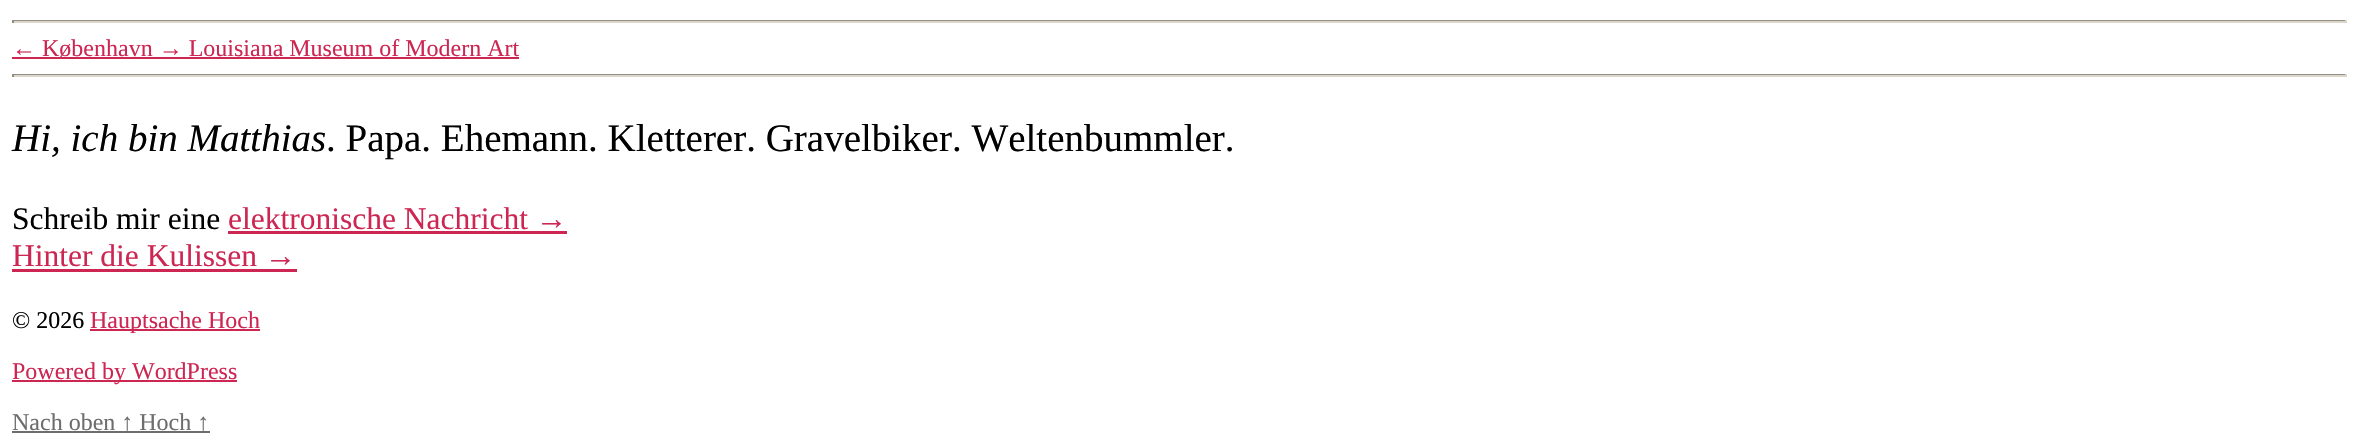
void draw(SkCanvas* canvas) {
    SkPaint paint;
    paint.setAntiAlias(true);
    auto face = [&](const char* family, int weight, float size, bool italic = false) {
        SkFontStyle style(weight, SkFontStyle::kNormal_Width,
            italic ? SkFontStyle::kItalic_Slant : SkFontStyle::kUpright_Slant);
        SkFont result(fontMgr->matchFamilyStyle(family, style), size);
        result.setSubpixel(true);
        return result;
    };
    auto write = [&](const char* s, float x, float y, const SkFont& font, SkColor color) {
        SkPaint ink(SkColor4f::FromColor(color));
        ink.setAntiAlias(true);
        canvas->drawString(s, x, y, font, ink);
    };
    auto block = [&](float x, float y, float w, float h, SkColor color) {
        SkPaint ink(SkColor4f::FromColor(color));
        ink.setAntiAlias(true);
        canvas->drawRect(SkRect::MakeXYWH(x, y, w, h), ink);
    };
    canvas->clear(SK_ColorWHITE);
    block(12, 20, 2334, 1, SkColorSetRGB(147, 143, 135));
    block(2345, 20, 2, 3, SkColorSetRGB(220, 215, 202));
    block(12, 21, 2334, 2, SkColorSetRGB(220, 215, 202));
    block(12, 20, 2, 3, SkColorSetRGB(147, 143, 135));
    auto kFont1 = face("Liberation Serif", 400, 24);
    write("← København → Louisiana Museum of Modern Art", 12, 56, kFont1, SkColorSetRGB(205, 38, 83));
    block(12, 57, 507, 2, SkColorSetRGB(205, 38, 83));
    block(12, 74, 2334, 1, SkColorSetRGB(147, 143, 135));
    block(2345, 74, 2, 3, SkColorSetRGB(220, 215, 202));
    block(12, 75, 2334, 2, SkColorSetRGB(220, 215, 202));
    block(12, 74, 2, 3, SkColorSetRGB(147, 143, 135));
    auto kFont2 = face("Liberation Serif", 400, 39, true);
    write("Hi, ich bin Matthias", 12, 151, kFont2, SK_ColorBLACK);
    auto kFont3 = face("Liberation Serif", 400, 39);
    write(". Papa. Ehemann. Kletterer. Gravelbiker. Weltenbummler.", 326, 151, kFont3, SK_ColorBLACK);
    auto kFont4 = face("Liberation Serif", 400, 31.5f);
    write("Schreib mir eine", 12, 229, kFont4, SK_ColorBLACK);
    write("elektronische Nachricht →", 228, 229, kFont4, SkColorSetRGB(205, 38, 83));
    block(228, 231, 339, 3, SkColorSetRGB(205, 38, 83));
    write("Hinter die Kulissen →", 12, 266, kFont4, SkColorSetRGB(205, 38, 83));
    block(12, 269, 285, 3, SkColorSetRGB(205, 38, 83));
    write("© 2026", 12, 328, kFont1, SK_ColorBLACK);
    block(90, 329, 170, 2, SkColorSetRGB(205, 38, 83));
    write("Hauptsache Hoch", 90, 328, kFont1, SkColorSetRGB(205, 38, 83));
    block(12, 380, 225, 2, SkColorSetRGB(205, 38, 83));
    write("Powered by WordPress", 12, 379, kFont1, SkColorSetRGB(205, 38, 83));
    write("Nach oben ↑ Hoch ↑", 12, 430, kFont1, SkColorSetRGB(109, 109, 109));
    block(12, 431, 198, 2, SkColorSetRGB(109, 109, 109));
}
